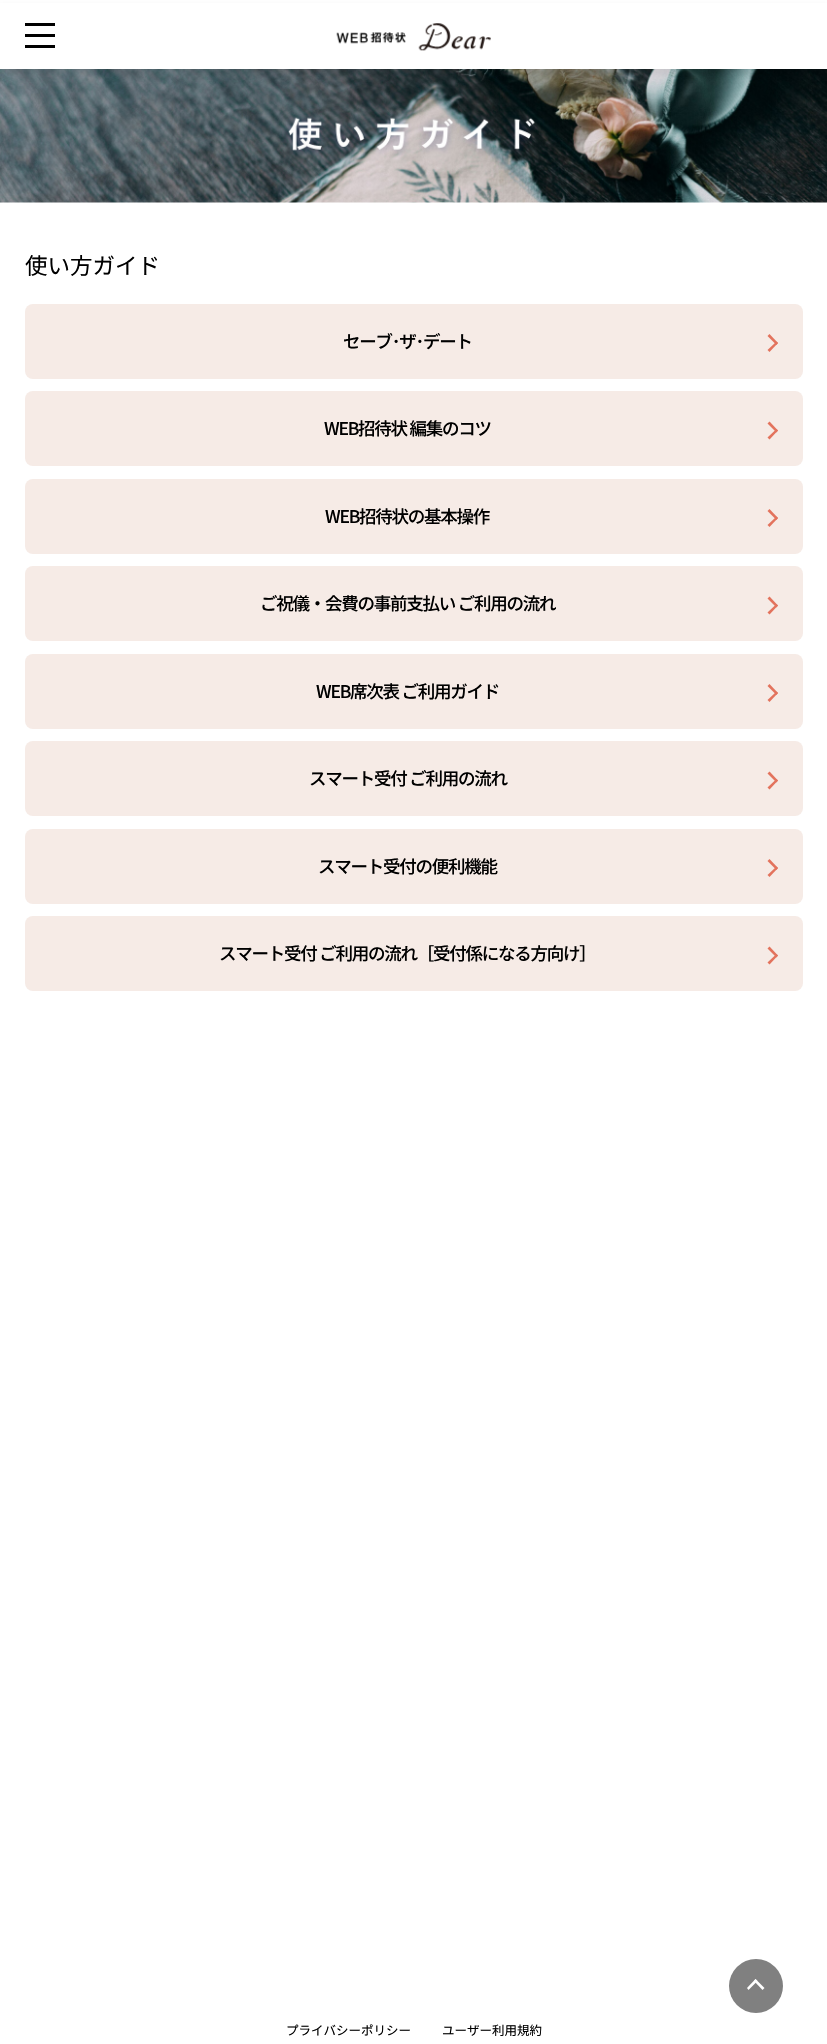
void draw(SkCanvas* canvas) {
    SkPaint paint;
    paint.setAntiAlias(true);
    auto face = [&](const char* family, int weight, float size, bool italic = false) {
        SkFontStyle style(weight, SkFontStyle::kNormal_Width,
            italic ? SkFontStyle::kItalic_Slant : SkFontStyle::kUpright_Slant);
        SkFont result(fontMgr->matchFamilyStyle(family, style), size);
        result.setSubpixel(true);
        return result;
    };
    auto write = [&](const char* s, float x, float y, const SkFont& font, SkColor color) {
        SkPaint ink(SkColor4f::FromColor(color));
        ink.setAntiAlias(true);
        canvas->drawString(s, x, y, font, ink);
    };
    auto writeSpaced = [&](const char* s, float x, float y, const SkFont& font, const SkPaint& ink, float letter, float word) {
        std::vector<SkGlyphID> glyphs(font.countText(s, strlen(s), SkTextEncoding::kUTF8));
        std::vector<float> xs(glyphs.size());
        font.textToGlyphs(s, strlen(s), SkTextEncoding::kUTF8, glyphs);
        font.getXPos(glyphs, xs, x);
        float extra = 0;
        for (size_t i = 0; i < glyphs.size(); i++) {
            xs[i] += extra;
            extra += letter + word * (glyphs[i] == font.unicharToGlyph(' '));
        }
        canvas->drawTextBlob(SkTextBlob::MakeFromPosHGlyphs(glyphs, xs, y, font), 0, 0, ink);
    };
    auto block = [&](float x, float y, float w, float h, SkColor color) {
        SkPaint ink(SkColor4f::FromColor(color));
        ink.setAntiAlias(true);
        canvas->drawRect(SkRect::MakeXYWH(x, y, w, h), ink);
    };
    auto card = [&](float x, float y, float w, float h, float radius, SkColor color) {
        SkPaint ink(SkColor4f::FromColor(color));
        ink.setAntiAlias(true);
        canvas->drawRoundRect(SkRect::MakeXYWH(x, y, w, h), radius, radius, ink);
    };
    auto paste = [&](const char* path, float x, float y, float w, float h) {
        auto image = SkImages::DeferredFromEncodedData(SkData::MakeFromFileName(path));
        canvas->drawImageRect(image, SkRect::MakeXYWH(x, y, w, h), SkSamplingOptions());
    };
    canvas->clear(SK_ColorWHITE);
    paste("pic2.png", 0, 69, 827, 134);
    paint.setColor(SkColorSetARGB(18, 0, 0, 0));
    paint.setMaskFilter(SkMaskFilter::MakeBlur(kNormal_SkBlurStyle, 3));
    canvas->drawRect(SkRect::MakeXYWH(0, 6, 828, 69), paint);
    paint.setMaskFilter(nullptr);
    block(0, 3, 827, 66, SK_ColorWHITE);
    paste("pic1.png", 336, 23, 155, 28);
    block(25, 23, 30, 3, SK_ColorBLACK);
    block(25, 34, 30, 3, SK_ColorBLACK);
    block(25, 45, 30, 3, SK_ColorBLACK);
    auto kFont1 = face("Noto Sans JP", 400, 22.5f);
    write("使い方ガイド", 25, 274, kFont1, SK_ColorBLACK);
    card(25, 304, 778, 75, 8, SkColorSetRGB(246, 235, 230));
    auto kFont2 = face("Noto Sans JP", 500, 17.5f);
    paint.setColor(SK_ColorBLACK);
    writeSpaced("セーブ･ザ･デート", 343, 348, kFont2, paint, -1.25f, 0);
    paint.setColor(SkColorSetRGB(227, 115, 93));
    canvas->drawPath(SkPathBuilder().moveTo(767.5f, 336).lineTo(769.5f, 334).lineTo(778, 343).lineTo(776.5f, 345).close().detach(), paint);
    canvas->drawPath(SkPathBuilder().moveTo(767.5f, 350).lineTo(776.5f, 341.5f).lineTo(778, 343).lineTo(769.5f, 352).close().detach(), paint);
    card(25, 391, 778, 75, 8, SkColorSetRGB(246, 235, 230));
    paint.setColor(SK_ColorBLACK);
    writeSpaced("WEB招待状 編集のコツ", 324, 435, kFont2, paint, -1.25f, 0);
    paint.setColor(SkColorSetRGB(227, 115, 93));
    canvas->drawPath(SkPathBuilder().moveTo(767.5f, 423.5f).lineTo(769.5f, 421.5f).lineTo(778, 430.5f).lineTo(776.5f, 432.5f).close().detach(), paint);
    canvas->drawPath(SkPathBuilder().moveTo(767.5f, 437.5f).lineTo(776.5f, 429).lineTo(778, 430.5f).lineTo(769.5f, 439.5f).close().detach(), paint);
    card(25, 479, 778, 75, 8, SkColorSetRGB(246, 235, 230));
    paint.setColor(SK_ColorBLACK);
    writeSpaced("WEB招待状の基本操作", 325, 523, kFont2, paint, -1.25f, 0);
    paint.setColor(SkColorSetRGB(227, 115, 93));
    canvas->drawPath(SkPathBuilder().moveTo(767.5f, 511).lineTo(769.5f, 509).lineTo(778, 518).lineTo(776.5f, 520).close().detach(), paint);
    canvas->drawPath(SkPathBuilder().moveTo(767.5f, 525).lineTo(776.5f, 516.5f).lineTo(778, 518).lineTo(769.5f, 527).close().detach(), paint);
    card(25, 566, 778, 75, 8, SkColorSetRGB(246, 235, 230));
    paint.setColor(SK_ColorBLACK);
    writeSpaced("ご祝儀・会費の事前支払い ご利用の流れ", 260, 610, kFont2, paint, -1.25f, 0);
    paint.setColor(SkColorSetRGB(227, 115, 93));
    canvas->drawPath(SkPathBuilder().moveTo(767.5f, 598.5f).lineTo(769.5f, 596.5f).lineTo(778, 605.5f).lineTo(776.5f, 607.5f).close().detach(), paint);
    canvas->drawPath(SkPathBuilder().moveTo(767.5f, 612.5f).lineTo(776.5f, 604).lineTo(778, 605.5f).lineTo(769.5f, 614.5f).close().detach(), paint);
    card(25, 654, 778, 75, 8, SkColorSetRGB(246, 235, 230));
    paint.setColor(SK_ColorBLACK);
    writeSpaced("WEB席次表 ご利用ガイド", 316, 698, kFont2, paint, -1.25f, 0);
    paint.setColor(SkColorSetRGB(227, 115, 93));
    canvas->drawPath(SkPathBuilder().moveTo(767.5f, 686).lineTo(769.5f, 684).lineTo(778, 693).lineTo(776.5f, 695).close().detach(), paint);
    canvas->drawPath(SkPathBuilder().moveTo(767.5f, 700).lineTo(776.5f, 691.5f).lineTo(778, 693).lineTo(769.5f, 702).close().detach(), paint);
    card(25, 741, 778, 75, 8, SkColorSetRGB(246, 235, 230));
    paint.setColor(SK_ColorBLACK);
    writeSpaced("スマート受付 ご利用の流れ", 309, 785, kFont2, paint, -1.25f, 0);
    paint.setColor(SkColorSetRGB(227, 115, 93));
    canvas->drawPath(SkPathBuilder().moveTo(767.5f, 773.5f).lineTo(769.5f, 771.5f).lineTo(778, 780.5f).lineTo(776.5f, 782.5f).close().detach(), paint);
    canvas->drawPath(SkPathBuilder().moveTo(767.5f, 787.5f).lineTo(776.5f, 779).lineTo(778, 780.5f).lineTo(769.5f, 789.5f).close().detach(), paint);
    card(25, 829, 778, 75, 8, SkColorSetRGB(246, 235, 230));
    paint.setColor(SK_ColorBLACK);
    writeSpaced("スマート受付の便利機能", 318, 873, kFont2, paint, -1.25f, 0);
    paint.setColor(SkColorSetRGB(227, 115, 93));
    canvas->drawPath(SkPathBuilder().moveTo(767.5f, 861).lineTo(769.5f, 859).lineTo(778, 868).lineTo(776.5f, 870).close().detach(), paint);
    canvas->drawPath(SkPathBuilder().moveTo(767.5f, 875).lineTo(776.5f, 866.5f).lineTo(778, 868).lineTo(769.5f, 877).close().detach(), paint);
    card(25, 916, 778, 75, 8, SkColorSetRGB(246, 235, 230));
    paint.setColor(SK_ColorBLACK);
    writeSpaced("スマート受付 ご利用の流れ［受付係になる方向け］", 219, 960, kFont2, paint, -1.25f, 0);
    paint.setColor(SkColorSetRGB(227, 115, 93));
    canvas->drawPath(SkPathBuilder().moveTo(767.5f, 948.5f).lineTo(769.5f, 946.5f).lineTo(778, 955.5f).lineTo(776.5f, 957.5f).close().detach(), paint);
    canvas->drawPath(SkPathBuilder().moveTo(767.5f, 962.5f).lineTo(776.5f, 954).lineTo(778, 955.5f).lineTo(769.5f, 964.5f).close().detach(), paint);
    paint.setColor(SkColorSetRGB(128, 128, 128));
    canvas->drawCircle(756, 1986, 27, paint);
    paint.setColor(SK_ColorWHITE);
    canvas->drawPath(SkPathBuilder().moveTo(755.5f, 1979).lineTo(764.5f, 1988).lineTo(762.5f, 1990).lineTo(754, 1981).close().detach(), paint);
    canvas->drawPath(SkPathBuilder().moveTo(755.5f, 1979).lineTo(757.5f, 1981).lineTo(748.5f, 1990).lineTo(747, 1988).close().detach(), paint);
    auto kFont3 = face("Noto Sans JP", 400, 12.5f);
    write("プライバシーポリシー", 286, 2035, kFont3, SK_ColorBLACK);
    write("ユーザー利用規約", 442, 2035, kFont3, SK_ColorBLACK);
}
